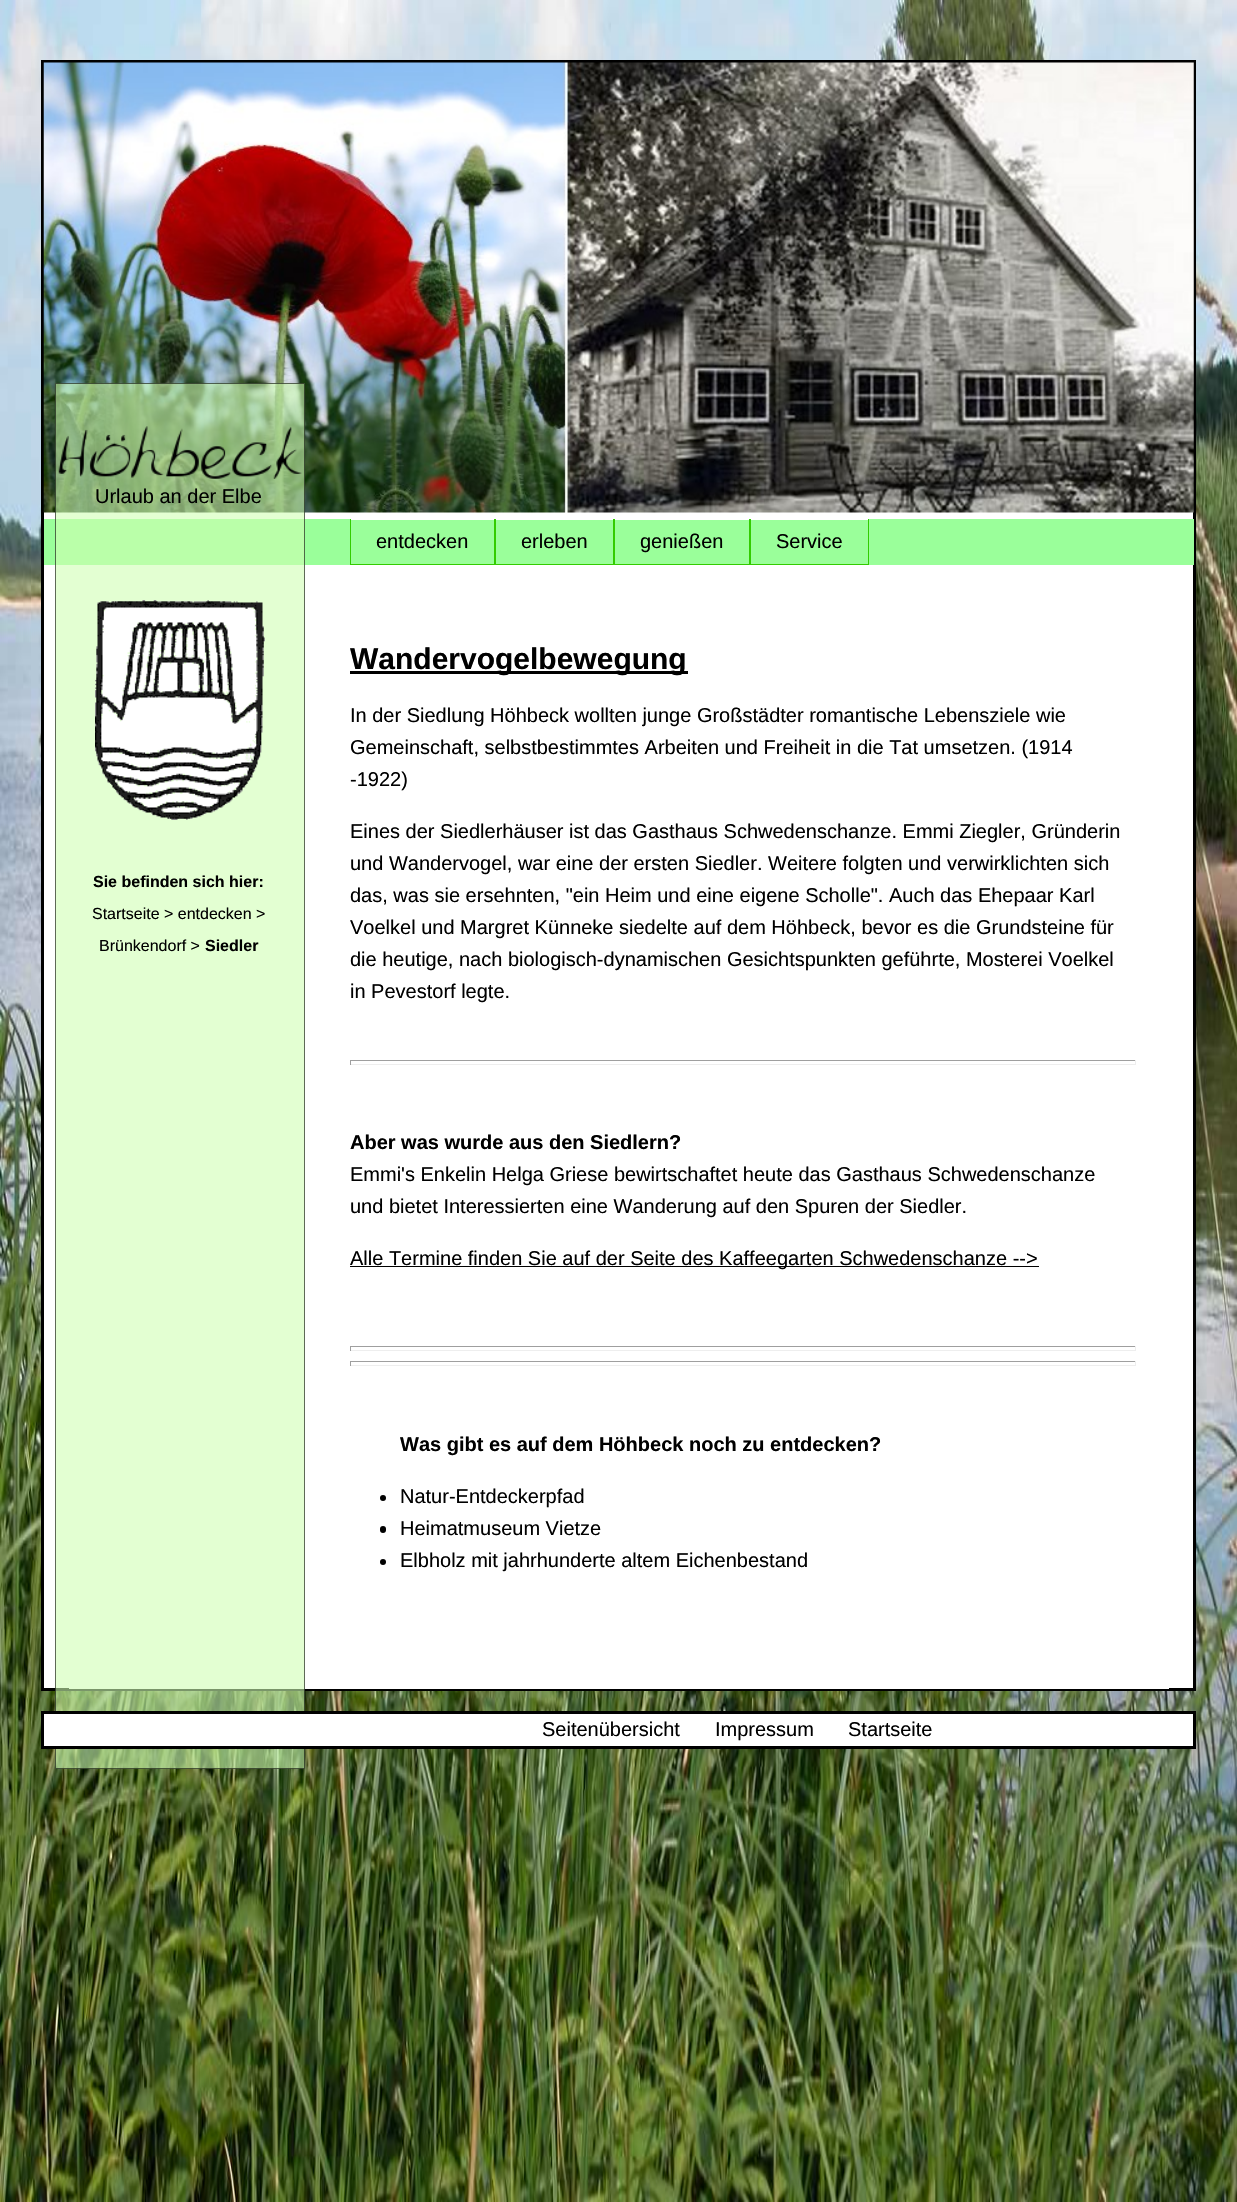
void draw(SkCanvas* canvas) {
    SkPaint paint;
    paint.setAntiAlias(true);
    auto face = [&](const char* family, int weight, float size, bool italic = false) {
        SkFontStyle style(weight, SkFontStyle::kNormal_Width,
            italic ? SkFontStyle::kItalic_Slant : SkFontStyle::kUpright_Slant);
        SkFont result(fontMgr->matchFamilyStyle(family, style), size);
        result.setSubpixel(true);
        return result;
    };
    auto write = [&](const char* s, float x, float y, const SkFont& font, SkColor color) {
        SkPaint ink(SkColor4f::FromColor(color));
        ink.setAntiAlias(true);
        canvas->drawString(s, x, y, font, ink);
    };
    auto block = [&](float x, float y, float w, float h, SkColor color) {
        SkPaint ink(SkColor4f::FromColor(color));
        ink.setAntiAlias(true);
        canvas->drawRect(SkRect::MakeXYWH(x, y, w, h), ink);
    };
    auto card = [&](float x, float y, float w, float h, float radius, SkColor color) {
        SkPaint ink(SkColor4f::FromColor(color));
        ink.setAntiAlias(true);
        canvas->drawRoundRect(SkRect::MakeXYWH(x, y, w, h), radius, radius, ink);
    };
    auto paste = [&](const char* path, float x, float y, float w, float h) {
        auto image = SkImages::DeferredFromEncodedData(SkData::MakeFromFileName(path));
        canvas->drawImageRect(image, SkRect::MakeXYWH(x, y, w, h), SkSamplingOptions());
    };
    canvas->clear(SK_ColorWHITE);
    paste("pic1.png", 0, 0, 1237, 2202);
    block(44, 512, 1149, 1176, SK_ColorWHITE);
    paint.setStyle(SkPaint::kStroke_Style);
    paint.setStrokeWidth(3);
    paint.setColor(SK_ColorBLACK);
    canvas->drawRect(SkRect::MakeXYWH(42.5f, 61.5f, 1152, 1628), paint);
    paste("pic2.png", 43, 62, 1151, 451);
    block(44, 519, 1150, 46, SkColorSetRGB(154, 255, 154));
    block(69, 1688, 1100, 1, SK_ColorWHITE);
    block(55, 383, 250, 1386, SkColorSetARGB(150, 208, 255, 179));
    paint.setStrokeWidth(1);
    paint.setColor(SkColorSetARGB(150, 0, 0, 0));
    canvas->drawRect(SkRect::MakeXYWH(55.5f, 383.5f, 249, 1385), paint);
    paste("pic3.png", 58, 426, 244, 53);
    auto kFont1 = face("Liberation Sans", 400, 20);
    write("Urlaub an der Elbe", 95, 503, kFont1, SK_ColorBLACK);
    block(350, 519, 519, 1, SK_ColorWHITE);
    block(494, 519, 1, 46, SkColorSetRGB(51, 204, 0));
    block(350, 564, 145, 1, SkColorSetRGB(51, 204, 0));
    block(350, 519, 1, 46, SkColorSetRGB(51, 204, 0));
    write("entdecken", 376, 548, kFont1, SK_ColorBLACK);
    block(613, 519, 1, 46, SkColorSetRGB(51, 204, 0));
    block(495, 564, 119, 1, SkColorSetRGB(51, 204, 0));
    block(495, 519, 1, 46, SkColorSetRGB(51, 204, 0));
    write("erleben", 521, 548, kFont1, SK_ColorBLACK);
    block(749, 519, 1, 46, SkColorSetRGB(51, 204, 0));
    block(614, 564, 136, 1, SkColorSetRGB(51, 204, 0));
    block(614, 519, 1, 46, SkColorSetRGB(51, 204, 0));
    write("genießen", 640, 548, kFont1, SK_ColorBLACK);
    block(868, 519, 1, 46, SkColorSetRGB(51, 204, 0));
    block(750, 564, 119, 1, SkColorSetRGB(51, 204, 0));
    block(750, 519, 1, 46, SkColorSetRGB(51, 204, 0));
    write("Service", 776, 548, kFont1, SK_ColorBLACK);
    paste("pic4.png", 95, 600, 170, 220);
    block(350, 671, 338, 3, SK_ColorBLACK);
    auto kFont2 = face("Liberation Sans", 700, 30);
    write("Wandervogelbewegung", 350, 669, kFont2, SK_ColorBLACK);
    write("In der Siedlung Höhbeck wollten junge Großstädter romantische Lebensziele wie", 350, 722, kFont1, SK_ColorBLACK);
    write("Gemeinschaft, selbstbestimmtes Arbeiten und Freiheit in die Tat umsetzen. (1914", 350, 754, kFont1, SK_ColorBLACK);
    write("-1922)", 350, 786, kFont1, SK_ColorBLACK);
    write("Eines der Siedlerhäuser ist das Gasthaus Schwedenschanze. Emmi Ziegler, Gründerin", 350, 838, kFont1, SK_ColorBLACK);
    write("und Wandervogel, war eine der ersten Siedler. Weitere folgten und verwirklichten sich", 350, 870, kFont1, SK_ColorBLACK);
    write("das, was sie ersehnten, \"ein Heim und eine eigene Scholle\". Auch das Ehepaar Karl", 350, 902, kFont1, SK_ColorBLACK);
    write("Voelkel und Margret Künneke siedelte auf dem Höhbeck, bevor es die Grundsteine für", 350, 934, kFont1, SK_ColorBLACK);
    write("die heutige, nach biologisch-dynamischen Gesichtspunkten geführte, Mosterei Voelkel", 350, 966, kFont1, SK_ColorBLACK);
    write("in Pevestorf legte.", 350, 998, kFont1, SK_ColorBLACK);
    block(350, 1060, 786, 1, SkColorSetRGB(159, 159, 159));
    block(1135, 1060, 1, 5, SkColorSetRGB(238, 238, 238));
    block(350, 1064, 786, 1, SkColorSetRGB(238, 238, 238));
    block(350, 1060, 1, 5, SkColorSetRGB(159, 159, 159));
    auto kFont3 = face("Liberation Sans", 700, 20);
    write("Aber was wurde aus den Siedlern?", 350, 1149, kFont3, SK_ColorBLACK);
    write("Emmi's Enkelin Helga Griese bewirtschaftet heute das Gasthaus Schwedenschanze", 350, 1181, kFont1, SK_ColorBLACK);
    write("und bietet Interessierten eine Wanderung auf den Spuren der Siedler.", 350, 1213, kFont1, SK_ColorBLACK);
    block(350, 1266, 689, 1, SK_ColorBLACK);
    write("Alle Termine finden Sie auf der Seite des Kaffeegarten Schwedenschanze -->", 350, 1265, kFont1, SK_ColorBLACK);
    block(350, 1346, 786, 1, SkColorSetRGB(159, 159, 159));
    block(1135, 1346, 1, 5, SkColorSetRGB(238, 238, 238));
    block(350, 1350, 786, 1, SkColorSetRGB(238, 238, 238));
    block(350, 1346, 1, 5, SkColorSetRGB(159, 159, 159));
    block(350, 1361, 786, 1, SkColorSetRGB(159, 159, 159));
    block(1135, 1361, 1, 5, SkColorSetRGB(238, 238, 238));
    block(350, 1365, 786, 1, SkColorSetRGB(238, 238, 238));
    block(350, 1361, 1, 5, SkColorSetRGB(159, 159, 159));
    write("Was gibt es auf dem Höhbeck noch zu entdecken?", 400, 1451, kFont3, SK_ColorBLACK);
    paint.setStyle(SkPaint::kFill_Style);
    paint.setColor(SK_ColorBLACK);
    canvas->drawCircle(383, 1498, 3, paint);
    write("Natur-Entdeckerpfad", 400, 1503, kFont1, SK_ColorBLACK);
    card(380, 1526, 6, 7, 3, SK_ColorBLACK);
    write("Heimatmuseum Vietze", 400, 1535, kFont1, SK_ColorBLACK);
    canvas->drawCircle(383, 1562, 3, paint);
    write("Elbholz mit jahrhunderte altem Eichenbestand", 400, 1567, kFont1, SK_ColorBLACK);
    auto kFont4 = face("Liberation Sans", 700, 16);
    write("Sie befinden sich hier:", 93, 887, kFont4, SK_ColorBLACK);
    auto kFont5 = face("Liberation Sans", 400, 16);
    write("Startseite > entdecken >", 92, 919, kFont5, SK_ColorBLACK);
    write("Brünkendorf >", 99, 951, kFont5, SK_ColorBLACK);
    write("Siedler", 205, 951, kFont4, SK_ColorBLACK);
    paint.setColor(SK_ColorWHITE);
    canvas->drawRect(SkRect::MakeXYWH(42.5f, 1712.5f, 1152, 35), paint);
    paint.setStyle(SkPaint::kStroke_Style);
    paint.setStrokeWidth(3);
    paint.setColor(SK_ColorBLACK);
    canvas->drawRect(SkRect::MakeXYWH(42.5f, 1712.5f, 1152, 35), paint);
    write("Seitenübersicht", 542, 1736, kFont1, SK_ColorBLACK);
    write("Impressum", 715, 1736, kFont1, SK_ColorBLACK);
    write("Startseite", 848, 1736, kFont1, SK_ColorBLACK);
}
